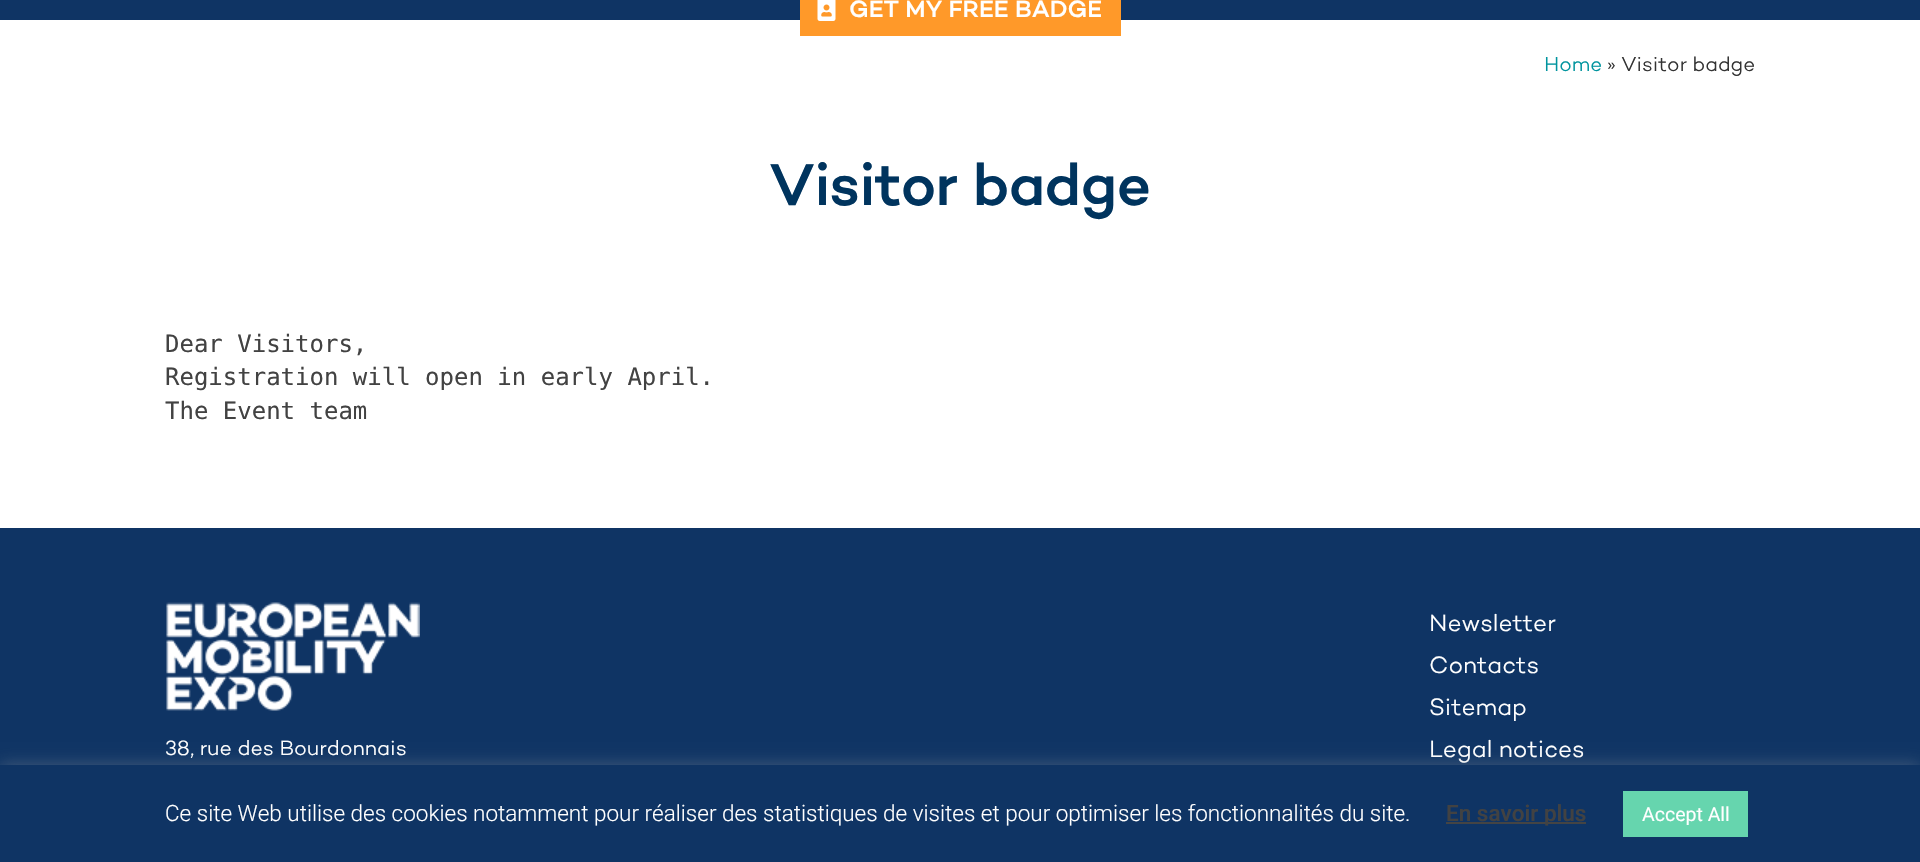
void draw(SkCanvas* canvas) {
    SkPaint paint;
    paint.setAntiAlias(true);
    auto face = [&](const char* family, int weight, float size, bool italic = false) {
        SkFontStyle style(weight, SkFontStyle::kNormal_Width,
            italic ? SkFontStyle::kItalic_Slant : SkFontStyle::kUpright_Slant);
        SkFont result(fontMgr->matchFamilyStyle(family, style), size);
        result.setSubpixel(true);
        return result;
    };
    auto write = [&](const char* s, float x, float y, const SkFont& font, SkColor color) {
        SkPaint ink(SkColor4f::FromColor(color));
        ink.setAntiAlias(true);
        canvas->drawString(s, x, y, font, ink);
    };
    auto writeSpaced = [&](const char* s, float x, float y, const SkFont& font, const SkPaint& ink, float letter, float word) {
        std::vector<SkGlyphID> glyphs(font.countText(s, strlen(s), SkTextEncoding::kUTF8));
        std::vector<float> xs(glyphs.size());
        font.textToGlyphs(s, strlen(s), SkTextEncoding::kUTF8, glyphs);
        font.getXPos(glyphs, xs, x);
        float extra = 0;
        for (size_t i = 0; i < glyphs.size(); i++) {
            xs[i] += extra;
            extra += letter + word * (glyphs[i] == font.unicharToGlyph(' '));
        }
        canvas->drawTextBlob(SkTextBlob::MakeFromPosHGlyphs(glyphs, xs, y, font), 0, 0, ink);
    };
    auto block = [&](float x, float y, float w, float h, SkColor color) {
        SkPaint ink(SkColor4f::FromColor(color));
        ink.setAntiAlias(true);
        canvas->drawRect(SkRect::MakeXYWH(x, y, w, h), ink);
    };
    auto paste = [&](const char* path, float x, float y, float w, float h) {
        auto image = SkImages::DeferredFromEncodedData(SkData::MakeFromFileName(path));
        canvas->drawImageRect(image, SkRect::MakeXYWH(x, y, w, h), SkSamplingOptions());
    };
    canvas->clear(SK_ColorWHITE);
    block(0, 0, 1920, 20, SkColorSetRGB(15, 52, 100));
    block(800, 0, 321, 36, SkColorSetRGB(255, 153, 41));
    paste("pic1.png", 817, 0, 19, 21);
    auto kFont1 = face("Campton", 500, 24);
    write("GET MY FREE BADGE", 849, 17, kFont1, SK_ColorWHITE);
    auto kFont2 = face("Campton", 300, 20.5f);
    write("Home", 1544, 71, kFont2, SkColorSetRGB(0, 148, 158));
    write("» Visitor badge", 1607, 71, kFont2, SkColorSetRGB(51, 51, 51));
    auto kFont3 = face("Campton", 500, 60);
    paint.setColor(SkColorSetRGB(0, 52, 94));
    writeSpaced("Visitor badge", 769, 205, kFont3, paint, -0.75f, 0);
    auto kFont4 = face("DejaVu Sans Mono", 400, 24);
    write("Dear Visitors,", 165, 352, kFont4, SkColorSetRGB(66, 66, 66));
    write("Registration will open in early April.", 165, 385, kFont4, SkColorSetRGB(66, 66, 66));
    write("The Event team", 165, 419, kFont4, SkColorSetRGB(66, 66, 66));
    block(0, 528, 1920, 237, SkColorSetRGB(15, 52, 100));
    paste("pic2.png", 166, 602, 254, 109);
    auto kFont5 = face("Campton", 300, 21);
    write("38, rue des Bourdonnais", 165, 755, kFont5, SK_ColorWHITE);
    auto kFont6 = face("Campton", 300, 24);
    write("Newsletter", 1429, 631, kFont6, SK_ColorWHITE);
    write("Contacts", 1429, 673, kFont6, SK_ColorWHITE);
    write("Sitemap", 1429, 715, kFont6, SK_ColorWHITE);
    write("Legal notices", 1429, 757, kFont6, SK_ColorWHITE);
    paint.setColor(SkColorSetARGB(77, 172, 171, 171));
    paint.setMaskFilter(SkMaskFilter::MakeBlur(kNormal_SkBlurStyle, 7.5f));
    canvas->drawRect(SkRect::MakeXYWH(0, 764, 1920, 97), paint);
    paint.setMaskFilter(nullptr);
    block(0, 765, 1920, 97, SkColorSetRGB(15, 52, 100));
    auto kFont7 = face("Roboto", 300, 22.5f);
    write("Ce site Web utilise des cookies notamment pour réaliser des statistiques de visites et pour optimiser les fonctionnalités du site.", 165, 821, kFont7, SK_ColorWHITE);
    block(1446, 822, 140, 2, SkColorSetRGB(68, 68, 68));
    auto kFont8 = face("Roboto", 500, 22.5f);
    write("En savoir plus", 1446, 821, kFont8, SkColorSetRGB(66, 66, 66));
    block(1623, 791, 125, 46, SkColorSetRGB(102, 213, 174));
    auto kFont9 = face("Roboto", 400, 19.5f);
    write("Accept All", 1642, 821, kFont9, SK_ColorWHITE);
}
